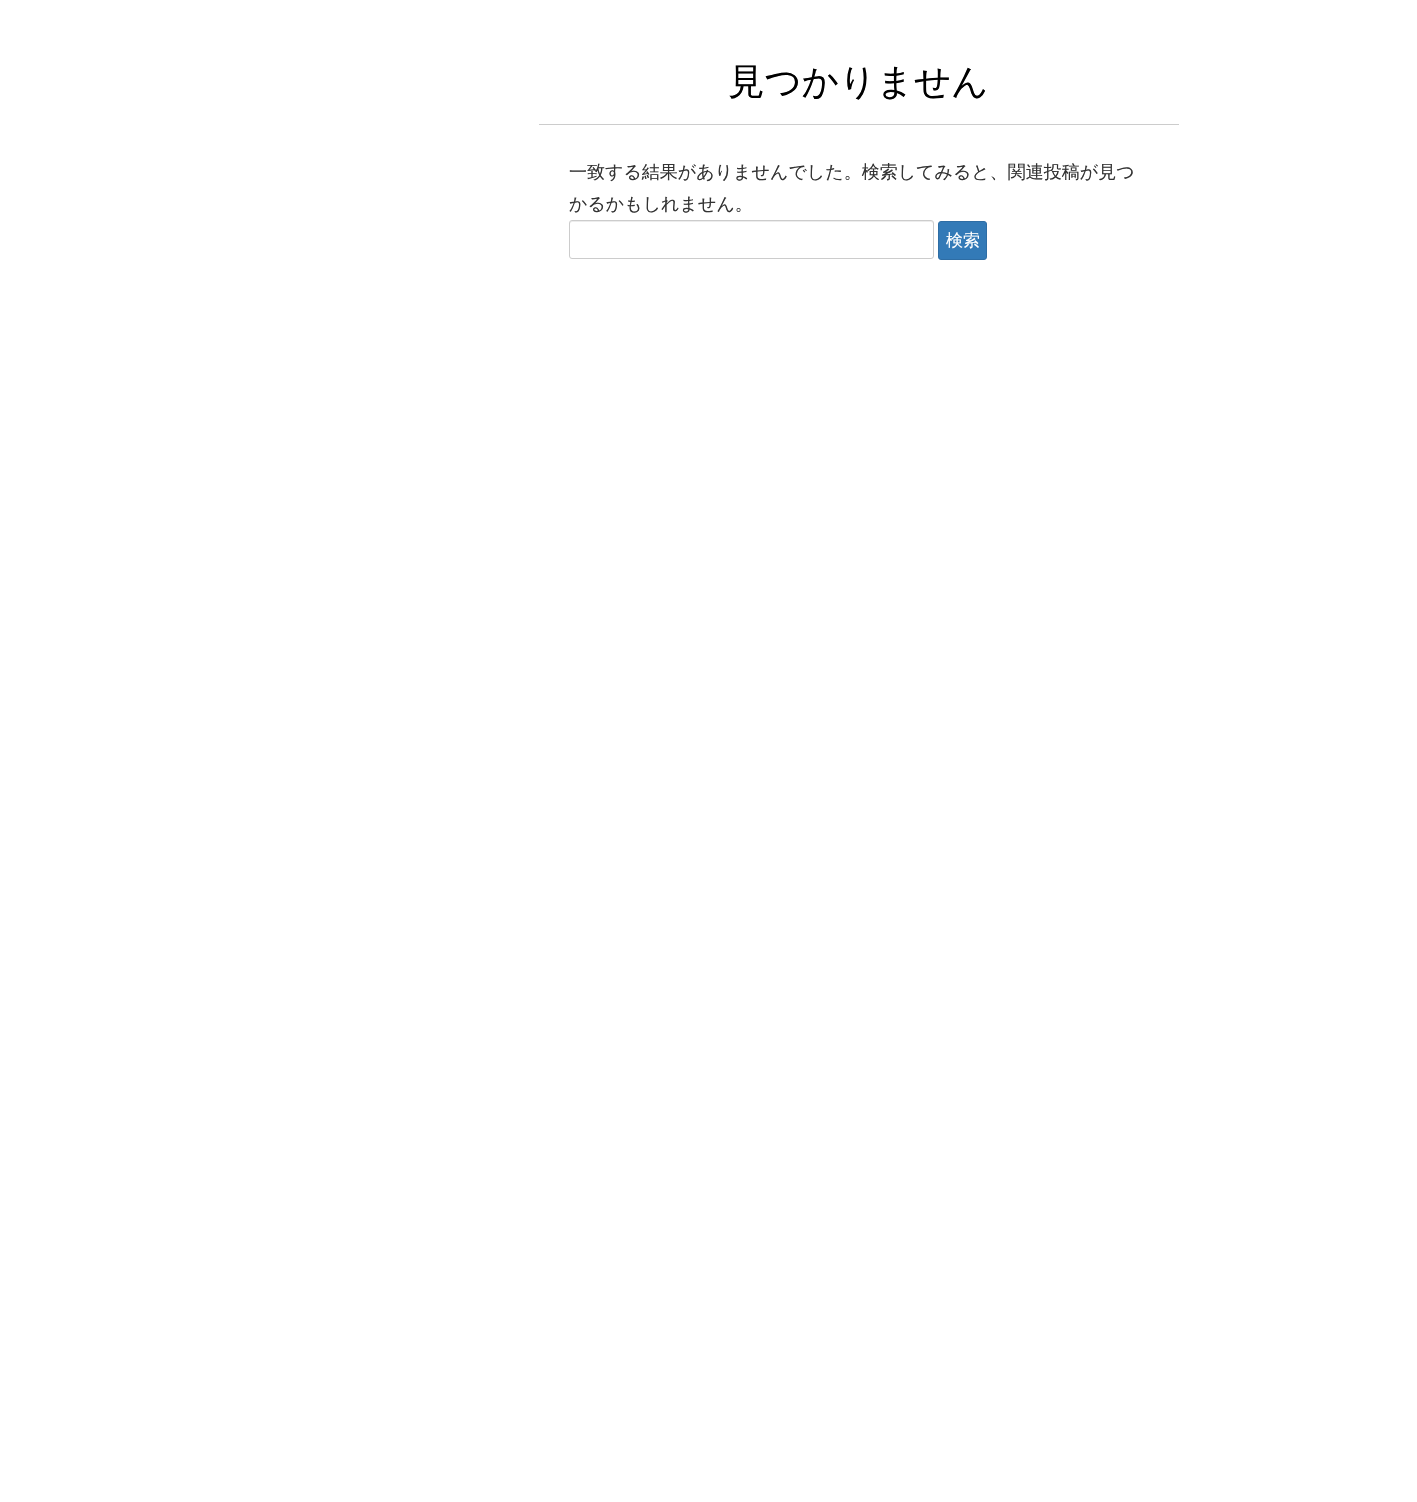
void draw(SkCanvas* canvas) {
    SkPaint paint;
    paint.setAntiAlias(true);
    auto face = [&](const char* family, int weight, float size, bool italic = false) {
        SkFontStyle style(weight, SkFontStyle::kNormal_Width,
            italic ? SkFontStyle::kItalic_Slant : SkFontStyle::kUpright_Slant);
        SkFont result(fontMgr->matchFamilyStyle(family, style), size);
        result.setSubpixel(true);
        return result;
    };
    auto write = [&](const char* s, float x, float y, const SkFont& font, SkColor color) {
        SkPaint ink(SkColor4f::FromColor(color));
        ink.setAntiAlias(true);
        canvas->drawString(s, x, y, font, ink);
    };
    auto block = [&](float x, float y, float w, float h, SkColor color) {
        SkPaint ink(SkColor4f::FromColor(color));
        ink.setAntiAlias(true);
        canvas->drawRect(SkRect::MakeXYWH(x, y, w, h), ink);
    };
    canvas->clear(SK_ColorWHITE);
    block(539, 124, 640, 1, SkColorSetRGB(204, 204, 204));
    auto kFont1 = face("WenQuanYi Zen Hei", 500, 36.5f);
    write("見つかりません", 728, 94, kFont1, SK_ColorBLACK);
    auto kFont2 = face("WenQuanYi Zen Hei", 500, 18);
    write("一致する結果がありませんでした。検索してみると、関連投稿が見つ", 569, 178, kFont2, SkColorSetRGB(51, 51, 51));
    write("かるかもしれません。", 569, 210, kFont2, SkColorSetRGB(51, 51, 51));
    paint.setColor(SkColorSetRGB(236, 236, 236));
    canvas->drawPath(SkPathBuilder().moveTo(572, 222).lineTo(931, 222).cubicTo(932, 222, 933, 223, 933, 224).cubicTo(933, 223, 933, 221, 931, 221).lineTo(572, 221).cubicTo(570, 221, 570, 223, 570, 224).cubicTo(570, 223, 571, 222, 572, 222).close().detach(), paint);
    paint.setStyle(SkPaint::kStroke_Style);
    paint.setStrokeWidth(1);
    paint.setColor(SkColorSetRGB(204, 204, 204));
    canvas->drawRoundRect(SkRect::MakeXYWH(569.5f, 220.5f, 364, 38), 2.5f, 2.5f, paint);
    paint.setStyle(SkPaint::kFill_Style);
    paint.setColor(SkColorSetRGB(51, 122, 183));
    canvas->drawRoundRect(SkRect::MakeXYWH(938.5f, 221.5f, 48, 38), 2.5f, 2.5f, paint);
    paint.setStyle(SkPaint::kStroke_Style);
    paint.setColor(SkColorSetRGB(46, 109, 164));
    canvas->drawRoundRect(SkRect::MakeXYWH(938.5f, 221.5f, 48, 38), 2.5f, 2.5f, paint);
    auto kFont3 = face("WenQuanYi Zen Hei", 500, 17);
    write("検索", 946, 246, kFont3, SK_ColorWHITE);
}
